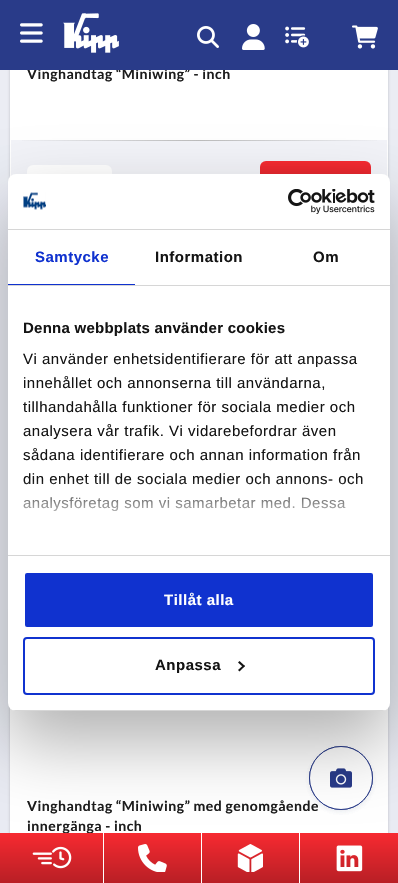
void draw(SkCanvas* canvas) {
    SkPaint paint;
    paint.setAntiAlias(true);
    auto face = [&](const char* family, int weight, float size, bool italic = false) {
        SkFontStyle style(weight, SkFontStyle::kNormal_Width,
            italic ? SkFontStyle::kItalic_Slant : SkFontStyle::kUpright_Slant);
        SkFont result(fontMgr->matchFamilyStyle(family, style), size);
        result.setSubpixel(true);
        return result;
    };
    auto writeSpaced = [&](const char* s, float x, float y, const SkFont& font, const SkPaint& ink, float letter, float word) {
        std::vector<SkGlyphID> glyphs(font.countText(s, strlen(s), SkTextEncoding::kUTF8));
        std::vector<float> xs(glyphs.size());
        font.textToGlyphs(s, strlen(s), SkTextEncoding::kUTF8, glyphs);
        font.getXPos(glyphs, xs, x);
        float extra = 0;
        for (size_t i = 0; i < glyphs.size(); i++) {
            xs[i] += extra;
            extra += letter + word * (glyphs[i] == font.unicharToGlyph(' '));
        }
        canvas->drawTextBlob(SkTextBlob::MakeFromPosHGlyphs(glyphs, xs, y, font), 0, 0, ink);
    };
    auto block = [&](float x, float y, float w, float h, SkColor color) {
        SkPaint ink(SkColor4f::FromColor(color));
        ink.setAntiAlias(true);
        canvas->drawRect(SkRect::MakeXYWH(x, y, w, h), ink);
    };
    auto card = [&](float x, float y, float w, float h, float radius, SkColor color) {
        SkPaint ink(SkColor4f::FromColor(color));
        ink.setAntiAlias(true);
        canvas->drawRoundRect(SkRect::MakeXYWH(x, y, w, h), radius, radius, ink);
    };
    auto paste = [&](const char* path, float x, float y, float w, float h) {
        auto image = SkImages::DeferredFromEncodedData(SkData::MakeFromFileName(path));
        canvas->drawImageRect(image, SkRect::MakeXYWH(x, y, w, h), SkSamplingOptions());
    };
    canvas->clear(SK_ColorWHITE);
    {
        const SkColor colors[] = {SkColorSetRGB(228, 231, 240), SkColorSetRGB(242, 243, 248)};
        const float stops[] = {0, 1};
        const SkPoint ends[] = {{199, 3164}, {199, -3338}};
        paint.setShader(SkGradientShader::MakeLinear(ends, colors, stops, 2, SkTileMode::kClamp));
        paint.setAlpha(255);
    }
    canvas->drawRect(SkRect::MakeXYWH(0, 70, 398, 763), paint);
    paint.setShader(nullptr);
    paint.setColor(SkColorSetARGB(51, 0, 0, 0));
    paint.setMaskFilter(SkMaskFilter::MakeBlur(kNormal_SkBlurStyle, 1.5f));
    canvas->drawRoundRect(SkRect::MakeXYWH(10, -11, 378, 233), 6, 6, paint);
    paint.setMaskFilter(nullptr);
    block(10, 70, 378, 107, SK_ColorWHITE);
    auto kFont1 = face("Lato", 700, 14);
    paint.setColor(SkColorSetRGB(28, 28, 28));
    writeSpaced("Vinghandtag “Miniwing” - inch", 27, 79, kFont1, paint, 0.5f, 0);
    block(0, 0, 398, 70, SkColorSetRGB(41, 59, 137));
    paste("pic1.png", 20, 23, 23, 20);
    paste("pic2.png", 63, 13, 56, 40);
    paste("pic3.png", 197, 26, 22, 22);
    paste("pic4.png", 242, 24, 23, 26);
    paste("pic5.png", 285, 26, 24, 22);
    paste("pic6.png", 352, 25, 26, 24);
    block(11, 140, 376, 36, SkColorSetRGB(242, 243, 248));
    paste("pic7.png", 22, 140, 355, 1);
    card(27, 165, 85, 32, 6, SK_ColorWHITE);
    {
        const SkColor colors[] = {SkColorSetRGB(184, 31, 37), SkColorSetRGB(247, 42, 49)};
        const float stops[] = {0, 1};
        const SkPoint ends[] = {{316, 201}, {316, 161}};
        paint.setShader(SkGradientShader::MakeLinear(ends, colors, stops, 2, SkTileMode::kClamp));
        paint.setAlpha(255);
    }
    canvas->drawRoundRect(SkRect::MakeXYWH(260, 161, 111, 40), 6, 6, paint);
    paint.setShader(nullptr);
    paint.setColor(SkColorSetARGB(51, 0, 0, 0));
    paint.setMaskFilter(SkMaskFilter::MakeBlur(kNormal_SkBlurStyle, 1.5f));
    canvas->drawRoundRect(SkRect::MakeXYWH(10, 608, 378, 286), 6, 6, paint);
    paint.setMaskFilter(nullptr);
    block(10, 708, 378, 125, SK_ColorWHITE);
    paint.setColor(SkColorSetRGB(28, 28, 28));
    writeSpaced("Vinghandtag “Miniwing” med genomgående", 27, 811, kFont1, paint, 0.5f, 0);
    writeSpaced("innergänga - inch", 27, 831, kFont1, paint, 0.5f, 0);
    paint.setColor(SkColorSetARGB(15, 77, 95, 128));
    paint.setMaskFilter(SkMaskFilter::MakeBlur(kNormal_SkBlurStyle, 2.5f));
    canvas->drawRoundRect(SkRect::MakeXYWH(309, 748, 64, 64), 32, 32, paint);
    paint.setMaskFilter(nullptr);
    paint.setStyle(SkPaint::kStroke_Style);
    paint.setStrokeWidth(1);
    paint.setColor(SkColorSetRGB(41, 59, 137));
    canvas->drawCircle(341, 778, 31.5f, paint);
    paint.setStyle(SkPaint::kFill_Style);
    {
        const SkColor colors[] = {SkColorSetRGB(184, 31, 37), SkColorSetRGB(247, 42, 49)};
        const float stops[] = {0, 1};
        const SkPoint ends[] = {{52, 883}, {52, 833}};
        paint.setShader(SkGradientShader::MakeLinear(ends, colors, stops, 2, SkTileMode::kClamp));
        paint.setAlpha(255);
    }
    canvas->drawRect(SkRect::MakeXYWH(0, 833, 103, 50), paint);
    block(103, 833, 1, 50, SK_ColorWHITE);
    paste("pic8.png", 32, 846, 40, 23);
    {
        const SkColor colors[] = {SkColorSetRGB(184, 31, 37), SkColorSetRGB(247, 42, 49)};
        const float stops[] = {0, 1};
        const SkPoint ends[] = {{153, 883}, {153, 833}};
        paint.setShader(SkGradientShader::MakeLinear(ends, colors, stops, 2, SkTileMode::kClamp));
        paint.setAlpha(255);
    }
    canvas->drawRect(SkRect::MakeXYWH(104, 833, 97, 50), paint);
    block(201, 833, 1, 50, SK_ColorWHITE);
    paste("pic9.png", 138, 844, 29, 28);
    {
        const SkColor colors[] = {SkColorSetRGB(184, 31, 37), SkColorSetRGB(247, 42, 49)};
        const float stops[] = {0, 1};
        const SkPoint ends[] = {{251, 883}, {251, 833}};
        paint.setShader(SkGradientShader::MakeLinear(ends, colors, stops, 2, SkTileMode::kClamp));
        paint.setAlpha(255);
    }
    canvas->drawRect(SkRect::MakeXYWH(202, 833, 97, 50), paint);
    block(299, 833, 1, 50, SK_ColorWHITE);
    paste("pic10.png", 237, 844, 26, 28);
    {
        const SkColor colors[] = {SkColorSetRGB(184, 31, 37), SkColorSetRGB(247, 42, 49)};
        const float stops[] = {0, 1};
        const SkPoint ends[] = {{349, 883}, {349, 833}};
        paint.setShader(SkGradientShader::MakeLinear(ends, colors, stops, 2, SkTileMode::kClamp));
        paint.setAlpha(255);
    }
    canvas->drawRect(SkRect::MakeXYWH(300, 833, 98, 50), paint);
    paste("pic11.png", 336, 845, 27, 27);
    paint.setShader(nullptr);
    paint.setColor(SkColorSetARGB(15, 77, 95, 128));
    paint.setMaskFilter(SkMaskFilter::MakeBlur(kNormal_SkBlurStyle, 2.5f));
    canvas->drawRoundRect(SkRect::MakeXYWH(309, 748, 64, 64), 32, 32, paint);
    paint.setMaskFilter(nullptr);
    paint.setColor(SK_ColorWHITE);
    canvas->drawCircle(341, 778, 31.5f, paint);
    paint.setStyle(SkPaint::kStroke_Style);
    paint.setColor(SkColorSetRGB(41, 59, 137));
    canvas->drawCircle(341, 778, 31.5f, paint);
    paste("pic14.png", 330, 768, 22, 20);
    paint.setStyle(SkPaint::kFill_Style);
    paint.setColor(SkColorSetARGB(77, 0, 0, 0));
    paint.setMaskFilter(SkMaskFilter::MakeBlur(kNormal_SkBlurStyle, 34));
    canvas->drawRoundRect(SkRect::MakeXYWH(8, 206, 382, 537), 8, 8, paint);
    paint.setMaskFilter(nullptr);
    card(8, 174, 382, 537, 8, SK_ColorWHITE);
    block(8, 229, 382, 1, SkColorSetRGB(214, 214, 214));
    paste("pic12.png", 23, 192, 23, 18);
    paste("pic13.png", 288, 189, 87, 25);
    block(8, 285, 382, 1, SkColorSetRGB(214, 214, 214));
    block(8, 284, 127, 1, SkColorSetRGB(16, 50, 207));
    auto kFont2 = face("Liberation Sans", 700, 15);
    paint.setColor(SkColorSetRGB(16, 50, 207));
    writeSpaced("Samtycke", 35, 262, kFont2, paint, 0.5f, 0);
    paint.setColor(SkColorSetRGB(20, 20, 20));
    writeSpaced("Information", 155, 262, kFont2, paint, 0.5f, 0);
    writeSpaced("Om", 313, 262, kFont2, paint, 0.5f, 0);
    block(8, 555, 382, 1, SkColorSetRGB(214, 214, 214));
    writeSpaced("Denna webbplats använder cookies", 23, 333, kFont2, paint, 0.25f, 0);
    auto kFont3 = face("Liberation Sans", 400, 15);
    writeSpaced("Vi använder enhetsidentifierare för att anpassa", 23, 364, kFont3, paint, 0.5f, 0);
    writeSpaced("innehållet och annonserna till användarna,", 23, 388, kFont3, paint, 0.5f, 0);
    writeSpaced("tillhandahålla funktioner för sociala medier och", 23, 412, kFont3, paint, 0.5f, 0);
    writeSpaced("analysera vår trafik. Vi vidarebefordrar även", 23, 436, kFont3, paint, 0.5f, 0);
    writeSpaced("sådana identifierare och annan information från", 23, 460, kFont3, paint, 0.5f, 0);
    writeSpaced("din enhet till de sociala medier och annons- och", 23, 484, kFont3, paint, 0.5f, 0);
    writeSpaced("analysföretag som vi samarbetar med. Dessa", 23, 508, kFont3, paint, 0.5f, 0);
    {
        const SkColor colors[] = {SK_ColorWHITE, SkColorSetARGB(204, 255, 255, 255), SkColorSetARGB(0, 255, 255, 255)};
        const float stops[] = {0, 0.5f, 1};
        const SkPoint ends[] = {{193, 555}, {193, 480}};
        paint.setShader(SkGradientShader::MakeLinear(ends, colors, stops, 3, SkTileMode::kClamp));
        paint.setAlpha(255);
    }
    canvas->drawRect(SkRect::MakeXYWH(23, 481, 340, 31), paint);
    canvas->save();
    canvas->clipPath(SkPathBuilder().moveTo(16, 174).lineTo(382, 174).cubicTo(386.5f, 174, 390, 177.5f, 390, 182).lineTo(390, 703).cubicTo(390, 707.5f, 386.5f, 711, 382, 711).lineTo(16, 711).cubicTo(11.5f, 711, 8, 707.5f, 8, 703).lineTo(8, 182).cubicTo(8, 177.5f, 11.5f, 174, 16, 174).close().detach(), true);
    block(8, 710, 382, 1, SkColorSetRGB(214, 214, 214));
    canvas->restore();
    paint.setShader(nullptr);
    paint.setColor(SkColorSetRGB(16, 50, 207));
    canvas->drawRoundRect(SkRect::MakeXYWH(24, 572, 350, 56), 3, 3, paint);
    paint.setStyle(SkPaint::kStroke_Style);
    paint.setStrokeWidth(2);
    paint.setColor(SK_ColorWHITE);
    canvas->drawRoundRect(SkRect::MakeXYWH(24, 572, 350, 56), 3, 3, paint);
    paint.setStyle(SkPaint::kFill_Style);
    writeSpaced("Tillåt alla", 164, 605, kFont2, paint, 0.5f, 0);
    paint.setStyle(SkPaint::kStroke_Style);
    paint.setColor(SkColorSetRGB(16, 50, 207));
    canvas->drawRoundRect(SkRect::MakeXYWH(24, 638, 350, 56), 3, 3, paint);
    paint.setStyle(SkPaint::kFill_Style);
    paint.setColor(SkColorSetRGB(20, 20, 20));
    writeSpaced("Anpassa", 155, 670, kFont2, paint, 0.5f, 0);
    canvas->drawPath(SkPathBuilder().moveTo(239.5f, 661).lineTo(245, 666).lineTo(243.5f, 667.5f).lineTo(238, 662.5f).close().detach(), paint);
    canvas->drawPath(SkPathBuilder().moveTo(243.5f, 665).lineTo(245, 666).lineTo(239.5f, 671.5f).lineTo(238, 670).close().detach(), paint);
}
